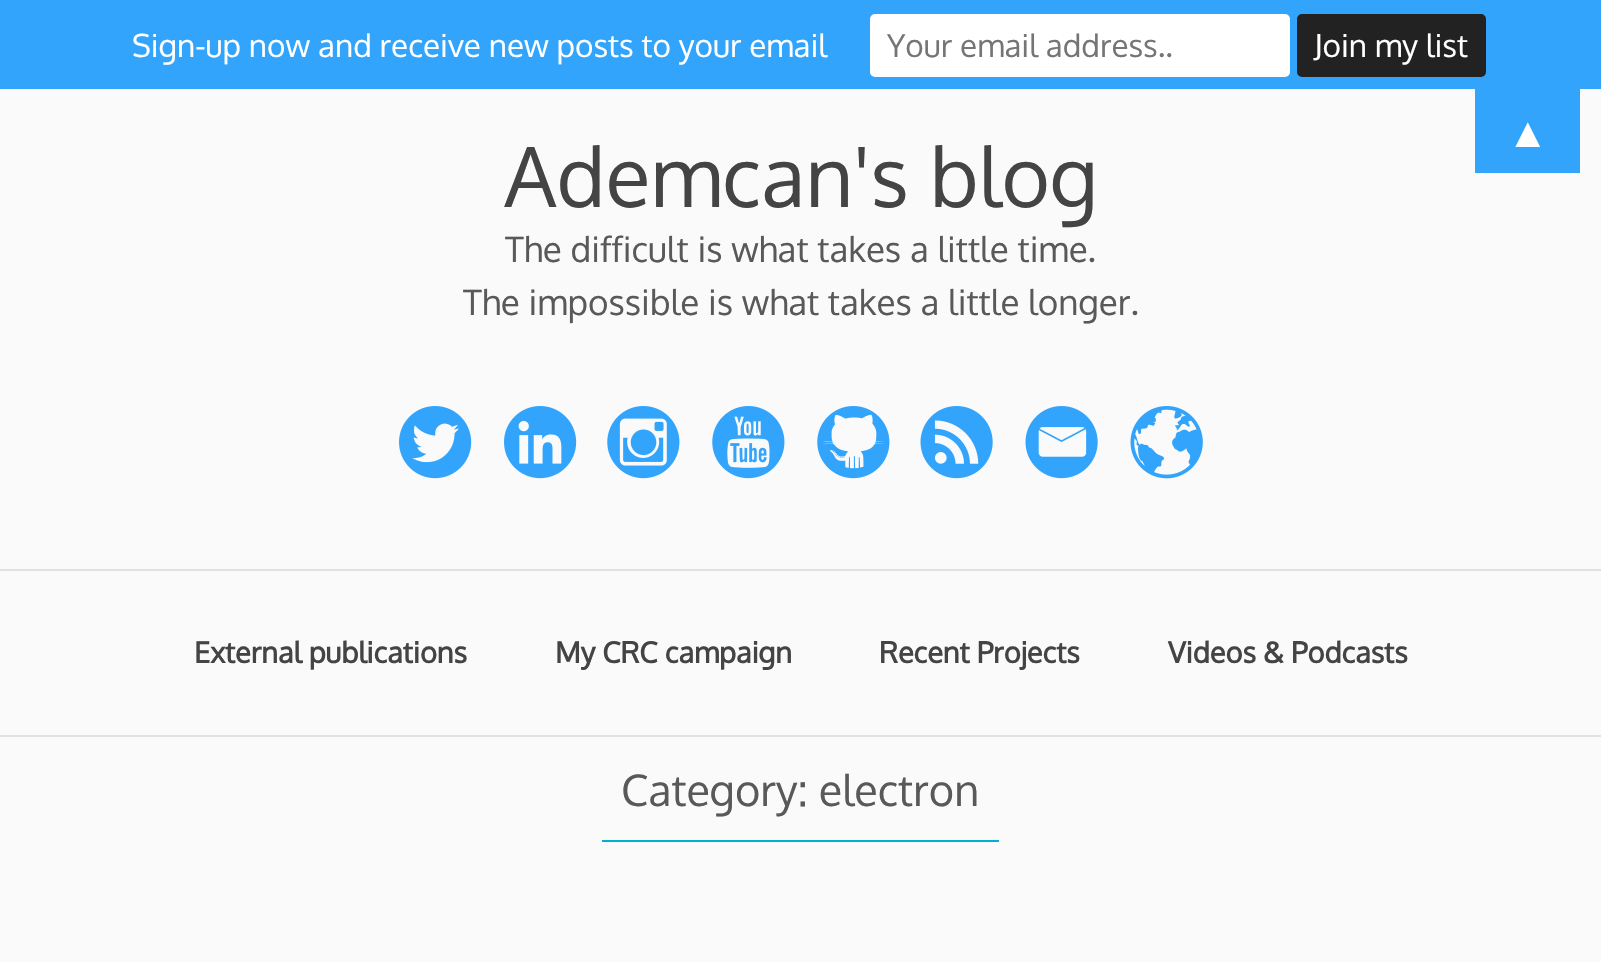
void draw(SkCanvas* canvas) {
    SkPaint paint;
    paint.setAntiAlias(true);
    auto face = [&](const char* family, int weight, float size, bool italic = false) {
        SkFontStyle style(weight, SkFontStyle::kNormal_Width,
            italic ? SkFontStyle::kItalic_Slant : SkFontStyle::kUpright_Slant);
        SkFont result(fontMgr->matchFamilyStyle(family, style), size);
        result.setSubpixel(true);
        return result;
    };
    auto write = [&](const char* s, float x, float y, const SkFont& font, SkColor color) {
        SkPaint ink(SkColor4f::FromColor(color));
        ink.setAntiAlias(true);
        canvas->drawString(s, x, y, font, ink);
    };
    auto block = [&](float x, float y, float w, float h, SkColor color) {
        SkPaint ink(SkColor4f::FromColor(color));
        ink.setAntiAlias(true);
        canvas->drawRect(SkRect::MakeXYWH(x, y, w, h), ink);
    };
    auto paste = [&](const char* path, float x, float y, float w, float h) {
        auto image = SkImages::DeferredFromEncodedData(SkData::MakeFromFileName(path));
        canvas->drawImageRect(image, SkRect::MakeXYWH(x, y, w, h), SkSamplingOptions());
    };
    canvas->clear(SkColorSetRGB(250, 250, 250));
    block(0, 0, 1601, 89, SkColorSetRGB(50, 164, 252));
    auto kFont1 = face("Oxygen", 400, 31.5f);
    write("Sign-up now and receive new posts to your email", 132, 57, kFont1, SK_ColorWHITE);
    paint.setColor(SK_ColorWHITE);
    canvas->drawRoundRect(SkRect::MakeXYWH(871, 15, 418, 61), 4, 4, paint);
    paint.setStyle(SkPaint::kStroke_Style);
    paint.setStrokeWidth(2);
    canvas->drawRoundRect(SkRect::MakeXYWH(871, 15, 418, 61), 4, 4, paint);
    write("Your email address..", 887, 57, kFont1, SkColorSetRGB(117, 117, 117));
    paint.setStyle(SkPaint::kFill_Style);
    paint.setColor(SkColorSetRGB(34, 34, 34));
    canvas->drawRoundRect(SkRect::MakeXYWH(1298, 15, 187, 61), 4, 4, paint);
    paint.setStyle(SkPaint::kStroke_Style);
    canvas->drawRoundRect(SkRect::MakeXYWH(1298, 15, 187, 61), 4, 4, paint);
    write("Join my list", 1314, 57, kFont1, SK_ColorWHITE);
    block(1475, 89, 105, 84, SkColorSetRGB(50, 164, 252));
    auto kFont2 = face("Liberation Sans", 400, 42);
    write("▲", 1507, 147, kFont2, SK_ColorWHITE);
    auto kFont3 = face("Oxygen", 400, 82.75f);
    write("Ademcan's blog", 504, 207, kFont3, SkColorSetRGB(68, 68, 68));
    auto kFont4 = face("Oxygen", 400, 35);
    write("The difficult is what takes a little time.", 505, 262, kFont4, SkColorSetRGB(89, 89, 89));
    write("The impossible is what takes a little longer.", 463, 315, kFont4, SkColorSetRGB(89, 89, 89));
    paste("pic1.png", 399, 406, 73, 73);
    paste("pic2.png", 504, 406, 73, 73);
    paste("pic3.png", 607, 406, 73, 73);
    paste("pic4.png", 712, 406, 73, 73);
    paste("pic5.png", 817, 406, 73, 73);
    paste("pic6.png", 920, 406, 73, 73);
    paste("pic7.png", 1025, 406, 73, 73);
    paste("pic8.png", 1130, 406, 73, 73);
    block(0, 569, 1601, 2, SkColorSetRGB(225, 225, 225));
    block(0, 735, 1601, 2, SkColorSetRGB(225, 225, 225));
    auto kFont5 = face("Oxygen", 700, 28.9f);
    write("External publications", 194, 663, kFont5, SkColorSetRGB(68, 68, 68));
    write("My CRC campaign", 555, 663, kFont5, SkColorSetRGB(68, 68, 68));
    write("Recent Projects", 879, 663, kFont5, SkColorSetRGB(68, 68, 68));
    write("Videos & Podcasts", 1168, 663, kFont5, SkColorSetRGB(68, 68, 68));
    block(602, 840, 397, 2, SkColorSetRGB(0, 176, 204));
    auto kFont6 = face("Oxygen", 400, 43.25f);
    write("Category: electron", 621, 806, kFont6, SkColorSetRGB(89, 89, 89));
}
